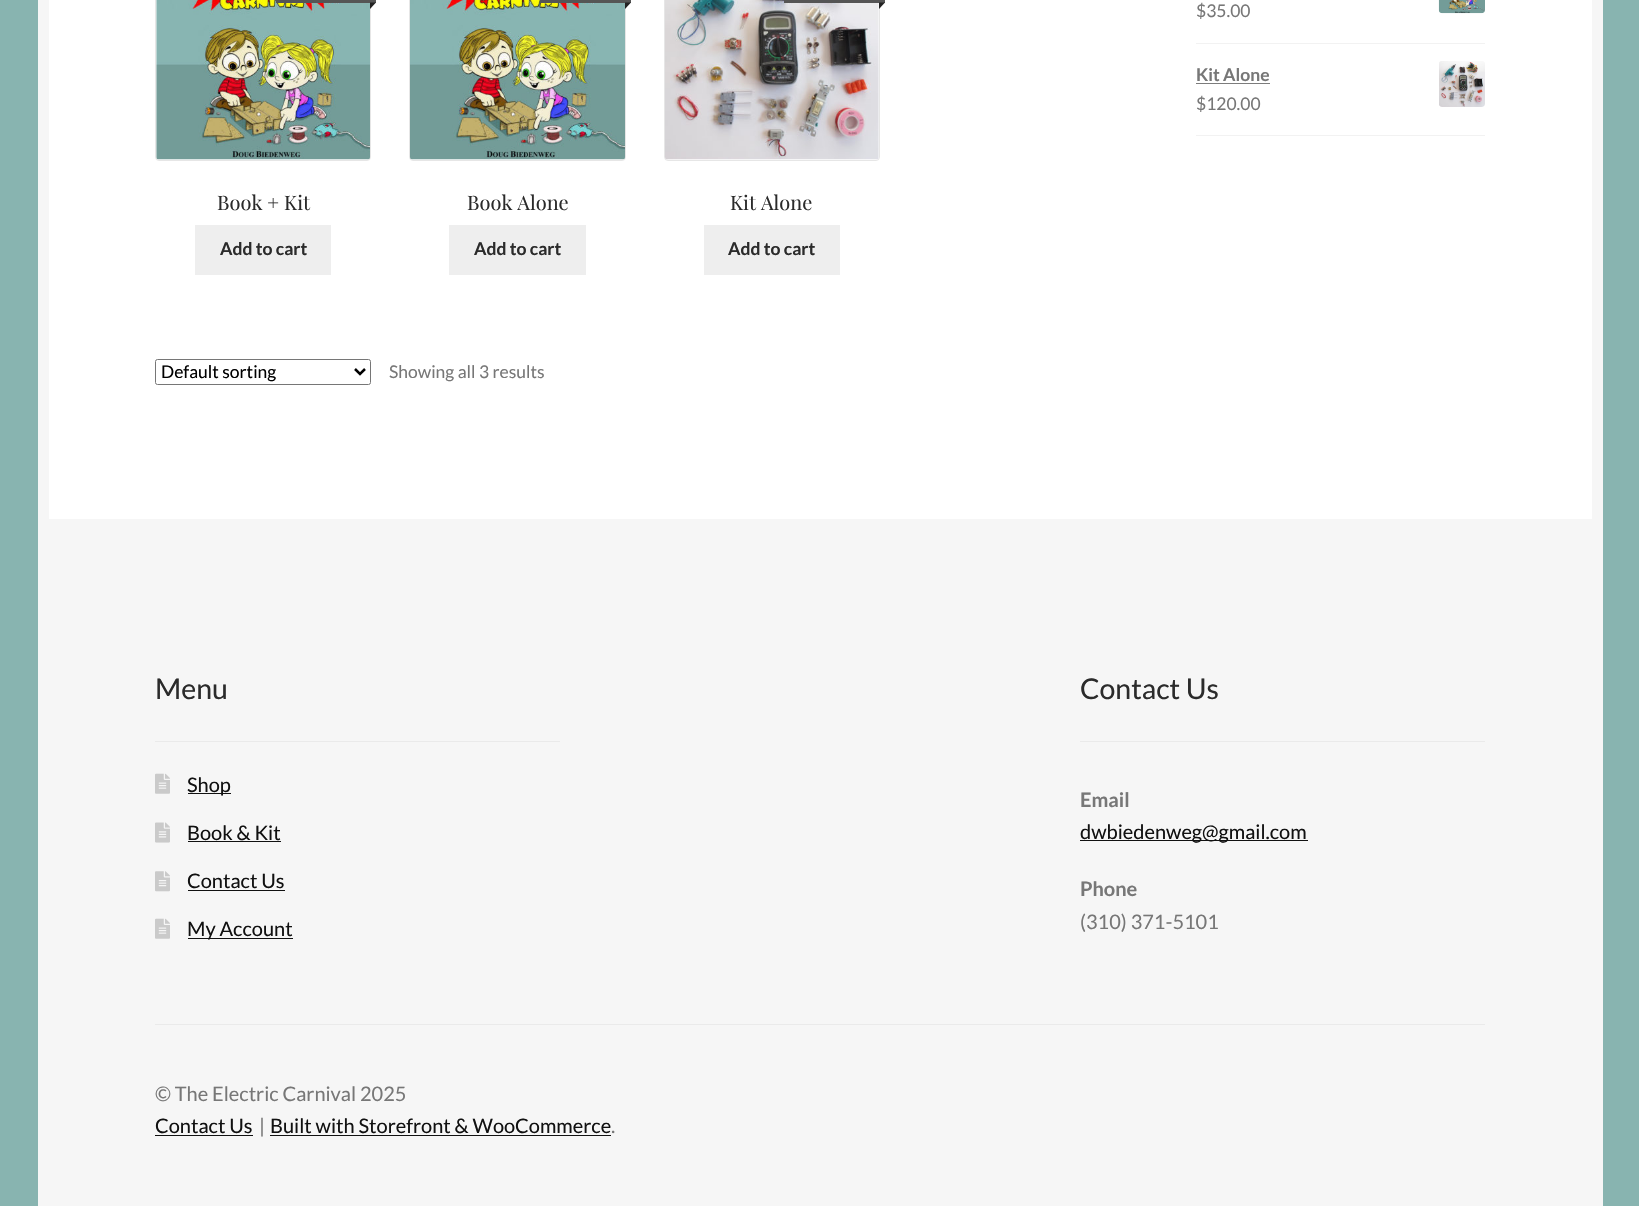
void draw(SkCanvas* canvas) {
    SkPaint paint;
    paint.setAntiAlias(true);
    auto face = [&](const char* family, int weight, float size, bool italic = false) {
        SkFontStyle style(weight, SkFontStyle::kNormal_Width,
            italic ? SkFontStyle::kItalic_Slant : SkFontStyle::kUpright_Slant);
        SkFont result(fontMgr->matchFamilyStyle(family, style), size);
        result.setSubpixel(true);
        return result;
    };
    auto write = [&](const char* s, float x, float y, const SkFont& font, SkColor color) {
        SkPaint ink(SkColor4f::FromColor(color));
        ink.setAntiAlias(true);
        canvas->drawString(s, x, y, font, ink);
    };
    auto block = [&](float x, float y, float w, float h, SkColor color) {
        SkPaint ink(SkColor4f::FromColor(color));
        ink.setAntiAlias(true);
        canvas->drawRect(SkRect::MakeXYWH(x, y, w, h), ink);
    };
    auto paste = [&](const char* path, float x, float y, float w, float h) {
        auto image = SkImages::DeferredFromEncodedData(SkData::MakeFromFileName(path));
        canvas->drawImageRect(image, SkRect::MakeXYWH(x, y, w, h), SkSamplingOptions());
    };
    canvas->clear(SkColorSetRGB(136, 180, 176));
    paint.setColor(SK_ColorWHITE);
    canvas->drawRect(SkRect::MakeXYWH(43.5f, -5.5f, 1554, 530), paint);
    paint.setStyle(SkPaint::kStroke_Style);
    paint.setStrokeWidth(11);
    paint.setColor(SkColorSetRGB(246, 246, 246));
    canvas->drawRect(SkRect::MakeXYWH(43.5f, -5.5f, 1554, 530), paint);
    block(1196, 43, 289, 1, SkColorSetRGB(242, 242, 242));
    auto kFont1 = face("Lato", 400, 17.5f);
    write("$35.00", 1196, 17, kFont1, SkColorSetRGB(119, 119, 119));
    paste("pic1.png", 1438, 0, 47, 14);
    block(1196, 135, 289, 1, SkColorSetRGB(242, 242, 242));
    auto kFont2 = face("Lato", 700, 17.5f);
    write("Kit Alone", 1196, 81, kFont2, SkColorSetRGB(119, 119, 119));
    block(1196, 83, 74, 1, SkColorSetRGB(124, 124, 124));
    paste("pic2.png", 1439, 61, 46, 46);
    write("$120.00", 1196, 110, kFont1, SkColorSetRGB(119, 119, 119));
    paint.setStrokeWidth(1);
    paint.setColor(SkColorSetRGB(230, 230, 230));
    canvas->drawRoundRect(SkRect::MakeXYWH(155.5f, -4.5f, 215, 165), 3.5f, 3.5f, paint);
    paste("pic3.png", 156, 0, 214, 160);
    paint.setStyle(SkPaint::kFill_Style);
    paint.setColor(SkColorSetRGB(85, 85, 85));
    canvas->drawPath(SkPathBuilder().moveTo(283, 2).lineTo(283, 3).lineTo(376, 3).lineTo(376, -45).lineTo(370, -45).lineTo(370, 2).close().detach(), paint);
    block(276, 0, 94, 3, SkColorSetRGB(85, 85, 85));
    paint.setColor(SkColorSetRGB(34, 34, 34));
    canvas->drawPath(SkPathBuilder().moveTo(370, 2.5f).lineTo(376, 2.5f).lineTo(370, 9).close().detach(), paint);
    auto kFont3 = face("Playfair Display", 400, 20);
    write("Book + Kit", 217, 210, kFont3, SkColorSetRGB(43, 43, 43));
    block(195, 225, 136, 50, SkColorSetRGB(238, 238, 238));
    write("Add to cart", 220, 255, kFont2, SkColorSetRGB(43, 43, 43));
    paint.setStyle(SkPaint::kStroke_Style);
    paint.setColor(SkColorSetRGB(230, 230, 230));
    canvas->drawRoundRect(SkRect::MakeXYWH(409.5f, -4.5f, 216, 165), 3.5f, 3.5f, paint);
    paste("pic4.png", 410, 0, 215, 160);
    paint.setStyle(SkPaint::kFill_Style);
    paint.setColor(SkColorSetRGB(85, 85, 85));
    canvas->drawPath(SkPathBuilder().moveTo(546, 2).lineTo(546, 3).lineTo(631, 3).lineTo(631, -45).lineTo(625, -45).lineTo(625, 2).close().detach(), paint);
    block(540, 0, 85, 3, SkColorSetRGB(85, 85, 85));
    paint.setColor(SkColorSetRGB(34, 34, 34));
    canvas->drawPath(SkPathBuilder().moveTo(625, 2.5f).lineTo(631, 2.5f).lineTo(625, 9).close().detach(), paint);
    write("Book Alone", 467, 210, kFont3, SkColorSetRGB(43, 43, 43));
    block(449, 225, 137, 50, SkColorSetRGB(238, 238, 238));
    write("Add to cart", 474, 255, kFont2, SkColorSetRGB(43, 43, 43));
    paint.setStyle(SkPaint::kStroke_Style);
    paint.setColor(SkColorSetRGB(230, 230, 230));
    canvas->drawRoundRect(SkRect::MakeXYWH(664.5f, -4.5f, 215, 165), 3.5f, 3.5f, paint);
    paste("pic5.png", 665, 0, 214, 160);
    paint.setStyle(SkPaint::kFill_Style);
    paint.setColor(SkColorSetRGB(85, 85, 85));
    canvas->drawPath(SkPathBuilder().moveTo(790, 2).lineTo(790, 3).lineTo(885, 3).lineTo(885, -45).lineTo(879, -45).lineTo(879, 2).close().detach(), paint);
    block(784, 0, 95, 3, SkColorSetRGB(85, 85, 85));
    paint.setColor(SkColorSetRGB(34, 34, 34));
    canvas->drawPath(SkPathBuilder().moveTo(879, 2.5f).lineTo(885, 2.5f).lineTo(879, 9).close().detach(), paint);
    write("Kit Alone", 730, 210, kFont3, SkColorSetRGB(43, 43, 43));
    block(704, 225, 136, 50, SkColorSetRGB(238, 238, 238));
    write("Add to cart", 728, 255, kFont2, SkColorSetRGB(43, 43, 43));
    paint.setStyle(SkPaint::kStroke_Style);
    paint.setColor(SkColorSetRGB(118, 118, 118));
    canvas->drawRoundRect(SkRect::MakeXYWH(155.5f, 359.5f, 215, 25), 2, 2, paint);
    paint.setStrokeWidth(2.5f);
    paint.setColor(SK_ColorBLACK);
    canvas->drawPath(SkPathBuilder().moveTo(355, 369).lineTo(360, 374).lineTo(365, 369).detach(), paint);
    write("Default sorting", 161, 378, kFont1, SK_ColorBLACK);
    write("Showing all 3 results", 389, 378, kFont1, SkColorSetRGB(119, 119, 119));
    block(38, 530, 1565, 676, SkColorSetRGB(246, 246, 246));
    block(155, 1024, 1330, 1, SkColorSetRGB(234, 234, 234));
    block(155, 741, 405, 1, SkColorSetRGB(234, 234, 234));
    auto kFont4 = face("Lato", 400, 28.5f);
    write("Menu", 155, 699, kFont4, SkColorSetRGB(43, 43, 43));
    paste("pic6.png", 155, 773, 15, 21);
    block(188, 793, 43, 1, SkColorSetRGB(17, 17, 17));
    auto kFont5 = face("Lato", 400, 20);
    write("Shop", 187, 792, kFont5, SkColorSetRGB(17, 17, 17));
    paste("pic7.png", 155, 822, 15, 21);
    write("Book & Kit", 187, 840, kFont5, SkColorSetRGB(17, 17, 17));
    block(188, 841, 93, 1, SkColorSetRGB(17, 17, 17));
    paste("pic8.png", 155, 871, 15, 21);
    write("Contact Us", 187, 888, kFont5, SkColorSetRGB(17, 17, 17));
    block(188, 890, 97, 1, SkColorSetRGB(17, 17, 17));
    paste("pic6.png", 155, 918, 15, 21);
    block(188, 938, 105, 1, SkColorSetRGB(17, 17, 17));
    write("My Account", 187, 936, kFont5, SkColorSetRGB(17, 17, 17));
    block(1080, 741, 405, 1, SkColorSetRGB(234, 234, 234));
    write("Contact Us", 1080, 699, kFont4, SkColorSetRGB(43, 43, 43));
    auto kFont6 = face("Lato", 700, 20);
    write("Email", 1080, 807, kFont6, SkColorSetRGB(119, 119, 119));
    block(1080, 840, 228, 1, SkColorSetRGB(17, 17, 17));
    write("dwbiedenweg@gmail.com", 1080, 839, kFont5, SkColorSetRGB(17, 17, 17));
    write("Phone", 1080, 896, kFont6, SkColorSetRGB(119, 119, 119));
    write("(310) 371-5101", 1080, 929, kFont5, SkColorSetRGB(119, 119, 119));
    write("© The Electric Carnival 2025", 155, 1101, kFont5, SkColorSetRGB(119, 119, 119));
    write("Contact Us", 155, 1133, kFont5, SkColorSetRGB(17, 17, 17));
    block(155, 1135, 98, 1, SkColorSetRGB(17, 17, 17));
    write("|", 259, 1133, kFont5, SkColorSetRGB(119, 119, 119));
    write("Built with Storefront & WooCommerce", 270, 1133, kFont5, SkColorSetRGB(17, 17, 17));
    block(270, 1135, 341, 1, SkColorSetRGB(17, 17, 17));
    write(".", 611, 1133, kFont5, SkColorSetRGB(119, 119, 119));
}
